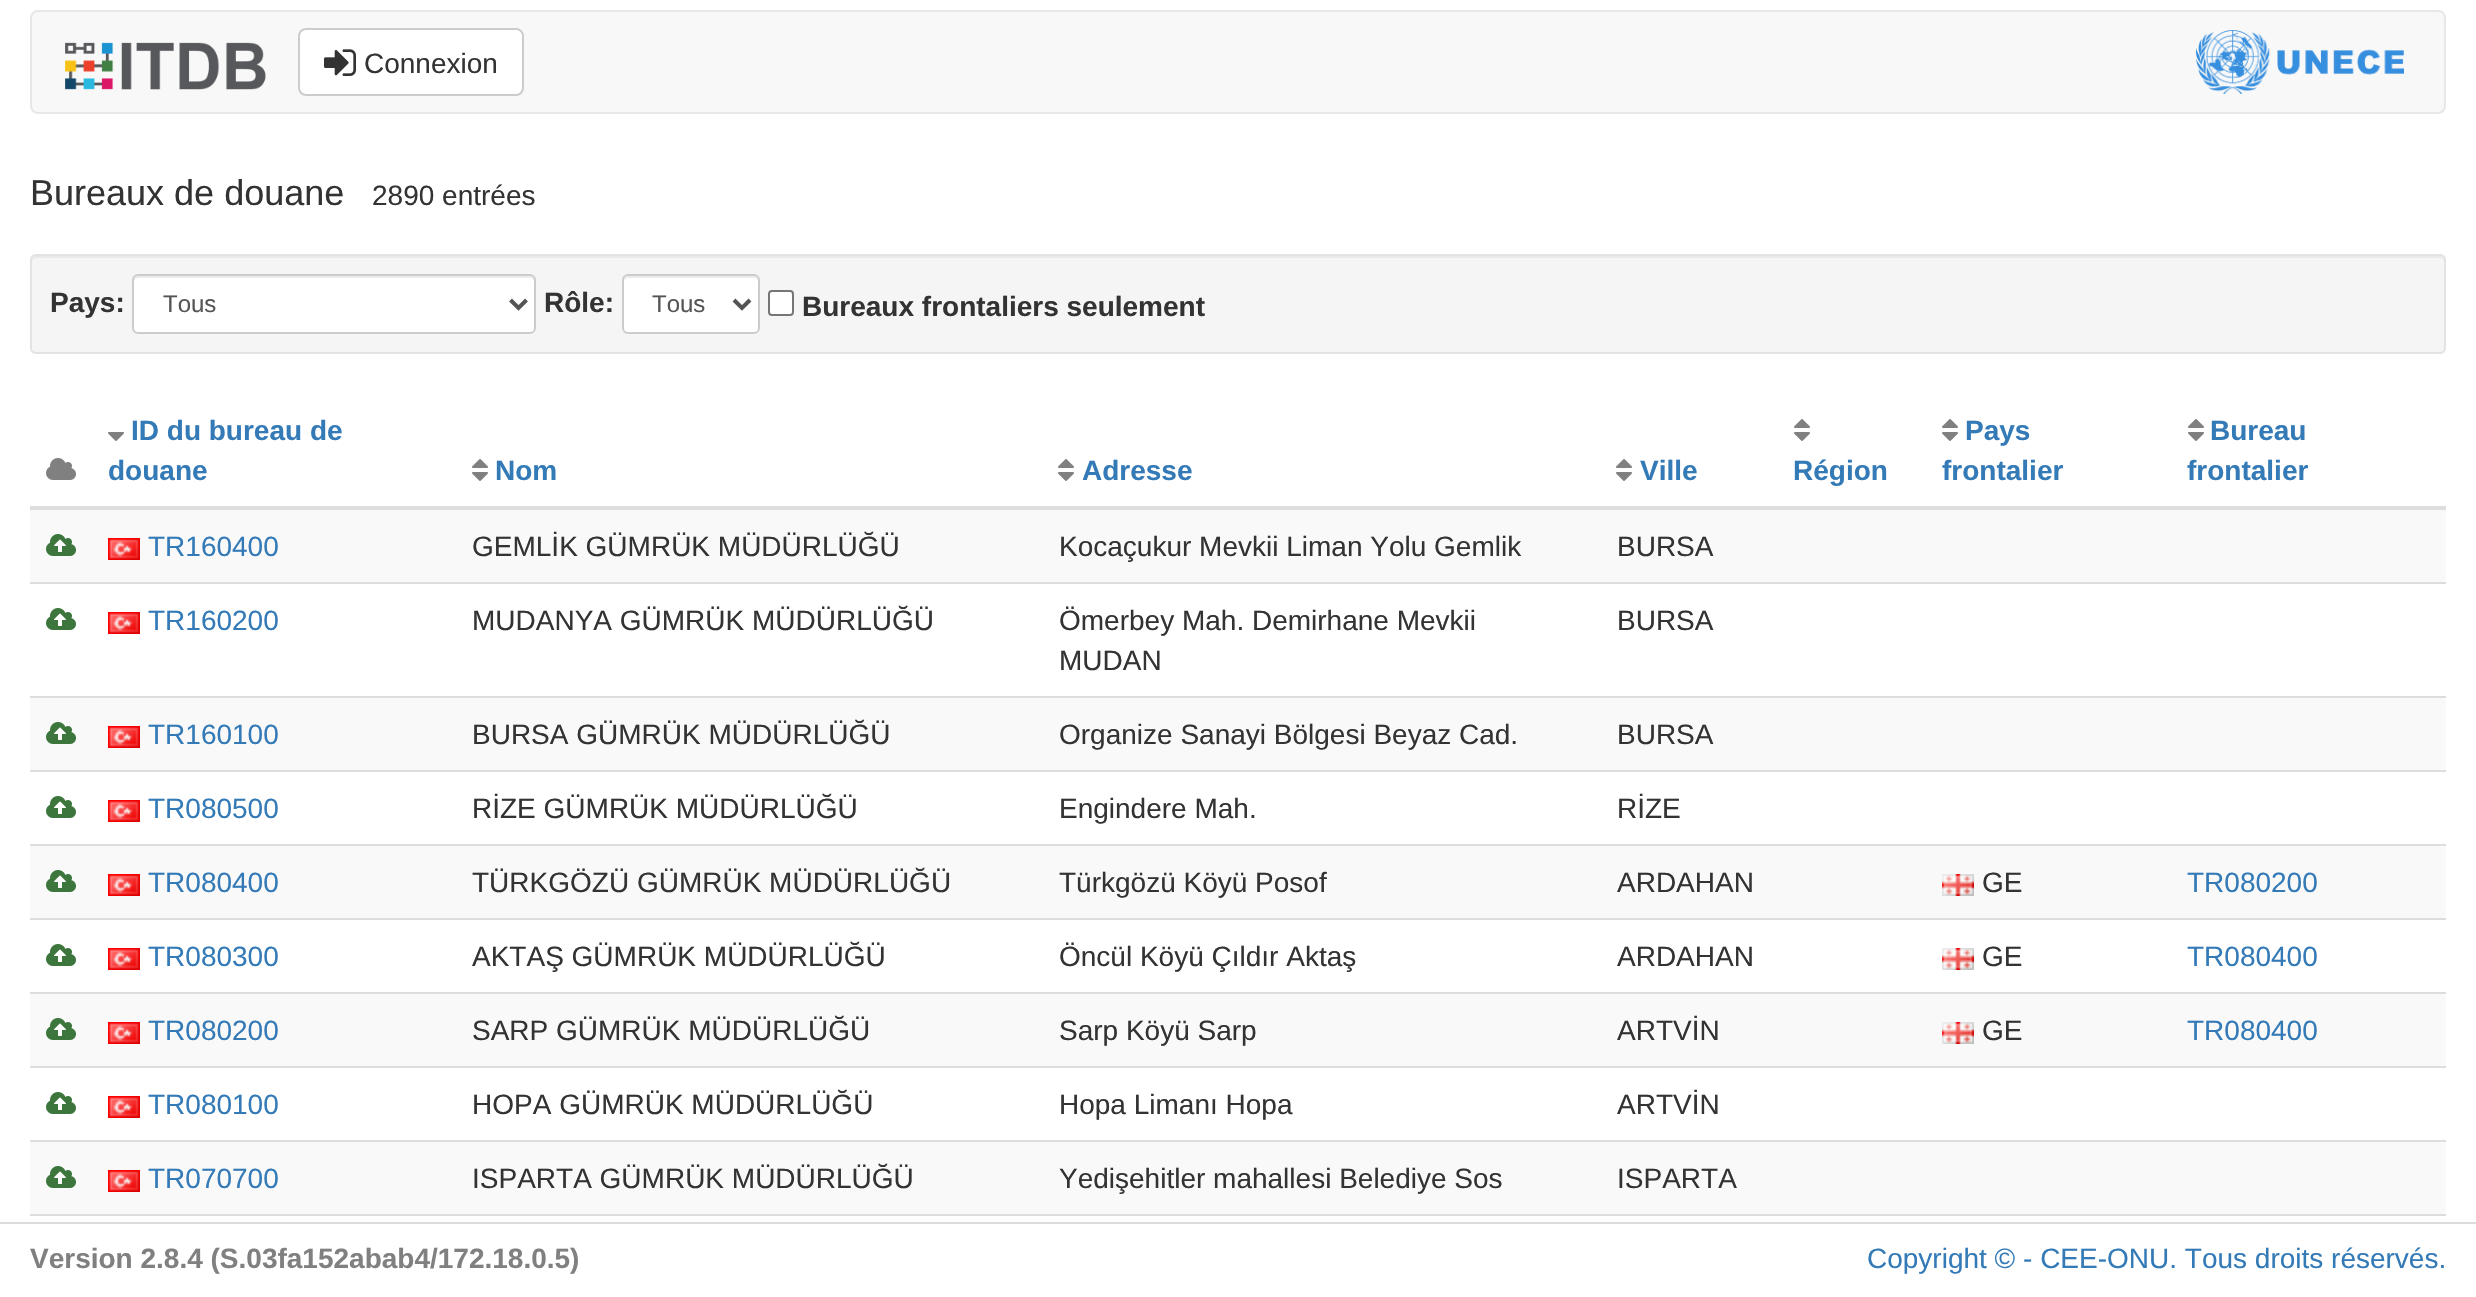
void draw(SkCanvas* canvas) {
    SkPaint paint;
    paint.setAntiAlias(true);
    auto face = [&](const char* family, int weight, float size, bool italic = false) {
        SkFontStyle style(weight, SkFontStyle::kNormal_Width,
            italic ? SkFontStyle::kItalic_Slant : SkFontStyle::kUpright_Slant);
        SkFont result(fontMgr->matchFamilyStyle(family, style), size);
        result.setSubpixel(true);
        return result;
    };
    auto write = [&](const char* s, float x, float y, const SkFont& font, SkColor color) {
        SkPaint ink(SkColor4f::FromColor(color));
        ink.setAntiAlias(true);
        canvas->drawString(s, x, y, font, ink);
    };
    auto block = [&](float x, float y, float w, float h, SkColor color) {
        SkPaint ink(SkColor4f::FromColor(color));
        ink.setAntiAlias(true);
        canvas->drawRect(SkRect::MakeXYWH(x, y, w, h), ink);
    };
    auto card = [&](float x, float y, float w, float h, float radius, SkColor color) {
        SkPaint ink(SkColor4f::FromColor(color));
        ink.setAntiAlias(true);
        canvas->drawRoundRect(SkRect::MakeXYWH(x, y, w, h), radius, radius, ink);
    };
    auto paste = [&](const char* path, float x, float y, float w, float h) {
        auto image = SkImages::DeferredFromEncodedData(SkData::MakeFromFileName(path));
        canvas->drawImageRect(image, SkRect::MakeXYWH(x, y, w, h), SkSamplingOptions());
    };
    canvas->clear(SK_ColorWHITE);
    paint.setColor(SkColorSetRGB(248, 248, 248));
    canvas->drawRoundRect(SkRect::MakeXYWH(31, 11, 2414, 102), 7, 7, paint);
    paint.setStyle(SkPaint::kStroke_Style);
    paint.setStrokeWidth(2);
    paint.setColor(SkColorSetRGB(231, 231, 231));
    canvas->drawRoundRect(SkRect::MakeXYWH(31, 11, 2414, 102), 7, 7, paint);
    paste("pic1.png", 65, 42, 201, 48);
    paint.setStyle(SkPaint::kFill_Style);
    paint.setColor(SK_ColorWHITE);
    canvas->drawRoundRect(SkRect::MakeXYWH(299, 29, 224, 66), 7, 7, paint);
    paint.setStyle(SkPaint::kStroke_Style);
    paint.setColor(SkColorSetRGB(204, 204, 204));
    canvas->drawRoundRect(SkRect::MakeXYWH(299, 29, 224, 66), 7, 7, paint);
    paste("pic2.png", 324, 49, 32, 27);
    auto kFont1 = face("Liberation Sans", 400, 28);
    write("Connexion", 364, 73, kFont1, SkColorSetRGB(51, 51, 51));
    paste("pic3.png", 2196, 30, 208, 64);
    auto kFont2 = face("Liberation Sans", 400, 36);
    write("Bureaux de douane", 30, 205, kFont2, SkColorSetRGB(51, 51, 51));
    write("2890 entrées", 372, 205, kFont1, SkColorSetRGB(51, 51, 51));
    card(30, 254, 2416, 100, 6, SkColorSetRGB(245, 245, 245));
    paint.setStyle(SkPaint::kFill_Style);
    paint.setColor(SkColorSetRGB(233, 233, 233));
    canvas->drawPath(SkPathBuilder().moveTo(36, 258).lineTo(2440, 258).cubicTo(2442, 258, 2444, 260, 2444, 262).lineTo(2444, 260).cubicTo(2444, 258, 2442, 256, 2440, 256).lineTo(36, 256).cubicTo(34, 256, 32, 258, 32, 260).lineTo(32, 262).cubicTo(32, 260, 34, 258, 36, 258).close().detach(), paint);
    paint.setStyle(SkPaint::kStroke_Style);
    paint.setColor(SkColorSetRGB(227, 227, 227));
    canvas->drawRoundRect(SkRect::MakeXYWH(31, 255, 2414, 98), 5, 5, paint);
    auto kFont3 = face("Liberation Sans", 700, 28);
    write("Pays:", 50, 312, kFont3, SkColorSetRGB(51, 51, 51));
    card(132, 274, 404, 60, 6, SK_ColorWHITE);
    paint.setStyle(SkPaint::kFill_Style);
    paint.setColor(SkColorSetRGB(236, 236, 236));
    canvas->drawPath(SkPathBuilder().moveTo(138, 278).lineTo(530, 278).cubicTo(532, 278, 534, 280, 534, 282).cubicTo(534, 279, 534, 276, 530, 276).lineTo(138, 276).cubicTo(134, 276, 134, 279, 134, 282).cubicTo(134, 280, 136, 278, 138, 278).close().detach(), paint);
    paint.setStyle(SkPaint::kStroke_Style);
    paint.setColor(SkColorSetRGB(204, 204, 204));
    canvas->drawRoundRect(SkRect::MakeXYWH(133, 275, 402, 58), 5, 5, paint);
    paint.setStrokeWidth(4);
    paint.setColor(SkColorSetRGB(85, 85, 85));
    canvas->drawPath(SkPathBuilder().moveTo(510.5f, 300).lineTo(518.5f, 308).lineTo(526.5f, 300).detach(), paint);
    auto kFont4 = face("Liberation Sans", 400, 24);
    write("Tous", 163, 312, kFont4, SkColorSetRGB(85, 85, 85));
    write("Rôle:", 544, 312, kFont3, SkColorSetRGB(51, 51, 51));
    card(622, 274, 138, 60, 6, SK_ColorWHITE);
    paint.setStyle(SkPaint::kFill_Style);
    paint.setColor(SkColorSetRGB(236, 236, 236));
    canvas->drawPath(SkPathBuilder().moveTo(628, 278).lineTo(754, 278).cubicTo(756, 278, 758, 280, 758, 282).lineTo(758, 280).cubicTo(758, 278, 756, 276, 754, 276).lineTo(628, 276).cubicTo(626, 276, 624, 278, 624, 280).lineTo(624, 282).cubicTo(624, 280, 626, 278, 628, 278).close().detach(), paint);
    paint.setStyle(SkPaint::kStroke_Style);
    paint.setStrokeWidth(2);
    paint.setColor(SkColorSetRGB(204, 204, 204));
    canvas->drawRoundRect(SkRect::MakeXYWH(623, 275, 136, 58), 5, 5, paint);
    paint.setStrokeWidth(4);
    paint.setColor(SkColorSetRGB(85, 85, 85));
    canvas->drawPath(SkPathBuilder().moveTo(734, 300).lineTo(742, 308).lineTo(750, 300).detach(), paint);
    write("Tous", 652, 312, kFont4, SkColorSetRGB(85, 85, 85));
    paint.setStyle(SkPaint::kFill_Style);
    paint.setColor(SK_ColorWHITE);
    canvas->drawRoundRect(SkRect::MakeXYWH(769, 291, 24, 24), 3, 3, paint);
    paint.setStyle(SkPaint::kStroke_Style);
    paint.setStrokeWidth(2);
    paint.setColor(SkColorSetRGB(118, 118, 118));
    canvas->drawRoundRect(SkRect::MakeXYWH(769, 291, 24, 24), 3, 3, paint);
    write("Bureaux frontaliers seulement", 802, 316, kFont3, SkColorSetRGB(51, 51, 51));
    paste("pic4.png", 46, 458, 30, 22);
    paste("pic5.png", 108, 432, 16, 9);
    write("ID du bureau de", 131, 440, kFont3, SkColorSetRGB(51, 122, 183));
    write("douane", 108, 480, kFont3, SkColorSetRGB(51, 122, 183));
    paste("pic6.png", 472, 459, 16, 22);
    write("Nom", 495, 480, kFont3, SkColorSetRGB(51, 122, 183));
    paste("pic6.png", 1058, 459, 16, 22);
    write("Adresse", 1082, 480, kFont3, SkColorSetRGB(51, 122, 183));
    paste("pic6.png", 1616, 459, 16, 22);
    write("Ville", 1640, 480, kFont3, SkColorSetRGB(51, 122, 183));
    paste("pic6.png", 1794, 419, 16, 22);
    write("Région", 1793, 480, kFont3, SkColorSetRGB(51, 122, 183));
    paste("pic6.png", 1942, 419, 16, 22);
    write("Pays", 1965, 440, kFont3, SkColorSetRGB(51, 122, 183));
    write("frontalier", 1942, 480, kFont3, SkColorSetRGB(51, 122, 183));
    block(30, 506, 2416, 4, SkColorSetRGB(221, 221, 221));
    paste("pic6.png", 2188, 419, 16, 22);
    write("Bureau", 2210, 440, kFont3, SkColorSetRGB(51, 122, 183));
    write("frontalier", 2187, 480, kFont3, SkColorSetRGB(51, 122, 183));
    block(30, 510, 2416, 72, SkColorSetRGB(249, 249, 249));
    paste("pic7.png", 46, 534, 30, 22);
    paste("pic8.png", 108, 538, 32, 22);
    write("TR160400", 148, 556, kFont1, SkColorSetRGB(51, 122, 183));
    write("GEMLİK GÜMRÜK MÜDÜRLÜĞÜ", 472, 556, kFont1, SkColorSetRGB(51, 51, 51));
    write("Kocaçukur Mevkii Liman Yolu Gemlik", 1059, 556, kFont1, SkColorSetRGB(51, 51, 51));
    write("BURSA", 1617, 556, kFont1, SkColorSetRGB(51, 51, 51));
    block(30, 582, 2416, 2, SkColorSetRGB(221, 221, 221));
    paste("pic9.png", 46, 608, 30, 22);
    paste("pic8.png", 108, 612, 32, 22);
    write("TR160200", 148, 630, kFont1, SkColorSetRGB(51, 122, 183));
    write("MUDANYA GÜMRÜK MÜDÜRLÜĞÜ", 472, 630, kFont1, SkColorSetRGB(51, 51, 51));
    write("Ömerbey Mah. Demirhane Mevkii", 1059, 630, kFont1, SkColorSetRGB(51, 51, 51));
    write("MUDAN", 1059, 670, kFont1, SkColorSetRGB(51, 51, 51));
    write("BURSA", 1617, 630, kFont1, SkColorSetRGB(51, 51, 51));
    block(30, 698, 2416, 72, SkColorSetRGB(249, 249, 249));
    block(30, 696, 2416, 2, SkColorSetRGB(221, 221, 221));
    paste("pic7.png", 46, 722, 30, 22);
    paste("pic8.png", 108, 726, 32, 22);
    write("TR160100", 148, 744, kFont1, SkColorSetRGB(51, 122, 183));
    write("BURSA GÜMRÜK MÜDÜRLÜĞÜ", 472, 744, kFont1, SkColorSetRGB(51, 51, 51));
    write("Organize Sanayi Bölgesi Beyaz Cad.", 1059, 744, kFont1, SkColorSetRGB(51, 51, 51));
    write("BURSA", 1617, 744, kFont1, SkColorSetRGB(51, 51, 51));
    block(30, 770, 2416, 2, SkColorSetRGB(221, 221, 221));
    paste("pic9.png", 46, 796, 30, 22);
    paste("pic8.png", 108, 800, 32, 22);
    write("TR080500", 148, 818, kFont1, SkColorSetRGB(51, 122, 183));
    write("RİZE GÜMRÜK MÜDÜRLÜĞÜ", 472, 818, kFont1, SkColorSetRGB(51, 51, 51));
    write("Engindere Mah.", 1059, 818, kFont1, SkColorSetRGB(51, 51, 51));
    write("RİZE", 1617, 818, kFont1, SkColorSetRGB(51, 51, 51));
    block(30, 846, 2416, 72, SkColorSetRGB(249, 249, 249));
    paste("pic7.png", 46, 870, 30, 22);
    paste("pic8.png", 108, 874, 32, 22);
    write("TR080400", 148, 892, kFont1, SkColorSetRGB(51, 122, 183));
    write("TÜRKGÖZÜ GÜMRÜK MÜDÜRLÜĞÜ", 472, 892, kFont1, SkColorSetRGB(51, 51, 51));
    write("Türkgözü Köyü Posof", 1059, 892, kFont1, SkColorSetRGB(51, 51, 51));
    write("ARDAHAN", 1617, 892, kFont1, SkColorSetRGB(51, 51, 51));
    paste("pic10.png", 1942, 874, 32, 22);
    write("GE", 1982, 892, kFont1, SkColorSetRGB(51, 51, 51));
    block(30, 844, 2416, 2, SkColorSetRGB(221, 221, 221));
    write("TR080200", 2187, 892, kFont1, SkColorSetRGB(51, 122, 183));
    paste("pic9.png", 46, 944, 30, 22);
    paste("pic8.png", 108, 948, 32, 22);
    write("TR080300", 148, 966, kFont1, SkColorSetRGB(51, 122, 183));
    write("AKTAŞ GÜMRÜK MÜDÜRLÜĞÜ", 472, 966, kFont1, SkColorSetRGB(51, 51, 51));
    write("Öncül Köyü Çıldır Aktaş", 1059, 966, kFont1, SkColorSetRGB(51, 51, 51));
    write("ARDAHAN", 1617, 966, kFont1, SkColorSetRGB(51, 51, 51));
    paste("pic10.png", 1942, 948, 32, 22);
    write("GE", 1982, 966, kFont1, SkColorSetRGB(51, 51, 51));
    block(30, 918, 2416, 2, SkColorSetRGB(221, 221, 221));
    write("TR080400", 2187, 966, kFont1, SkColorSetRGB(51, 122, 183));
    block(30, 994, 2416, 72, SkColorSetRGB(249, 249, 249));
    paste("pic7.png", 46, 1018, 30, 22);
    paste("pic8.png", 108, 1022, 32, 22);
    write("TR080200", 148, 1040, kFont1, SkColorSetRGB(51, 122, 183));
    write("SARP GÜMRÜK MÜDÜRLÜĞÜ", 472, 1040, kFont1, SkColorSetRGB(51, 51, 51));
    write("Sarp Köyü Sarp", 1059, 1040, kFont1, SkColorSetRGB(51, 51, 51));
    write("ARTVİN", 1617, 1040, kFont1, SkColorSetRGB(51, 51, 51));
    paste("pic10.png", 1942, 1022, 32, 22);
    write("GE", 1982, 1040, kFont1, SkColorSetRGB(51, 51, 51));
    block(30, 992, 2416, 2, SkColorSetRGB(221, 221, 221));
    write("TR080400", 2187, 1040, kFont1, SkColorSetRGB(51, 122, 183));
    block(30, 1066, 2416, 2, SkColorSetRGB(221, 221, 221));
    paste("pic9.png", 46, 1092, 30, 22);
    paste("pic8.png", 108, 1096, 32, 22);
    write("TR080100", 148, 1114, kFont1, SkColorSetRGB(51, 122, 183));
    write("HOPA GÜMRÜK MÜDÜRLÜĞÜ", 472, 1114, kFont1, SkColorSetRGB(51, 51, 51));
    write("Hopa Limanı Hopa", 1059, 1114, kFont1, SkColorSetRGB(51, 51, 51));
    write("ARTVİN", 1617, 1114, kFont1, SkColorSetRGB(51, 51, 51));
    block(30, 1142, 2416, 72, SkColorSetRGB(249, 249, 249));
    block(30, 1140, 2416, 2, SkColorSetRGB(221, 221, 221));
    paste("pic7.png", 46, 1166, 30, 22);
    paste("pic8.png", 108, 1170, 32, 22);
    write("TR070700", 148, 1188, kFont1, SkColorSetRGB(51, 122, 183));
    write("ISPARTA GÜMRÜK MÜDÜRLÜĞÜ", 472, 1188, kFont1, SkColorSetRGB(51, 51, 51));
    write("Yedişehitler mahallesi Belediye Sos", 1059, 1188, kFont1, SkColorSetRGB(51, 51, 51));
    write("ISPARTA", 1617, 1188, kFont1, SkColorSetRGB(51, 51, 51));
    block(30, 1214, 2416, 2, SkColorSetRGB(221, 221, 221));
    block(0, 1222, 2476, 2, SkColorSetRGB(220, 220, 220));
    write("Version 2.8.4 (S.03fa152abab4/172.18.0.5)", 30, 1268, kFont3, SkColorSetRGB(128, 128, 128));
    write("Copyright © - CEE-ONU. Tous droits réservés.", 1867, 1268, kFont1, SkColorSetRGB(51, 122, 183));
}
